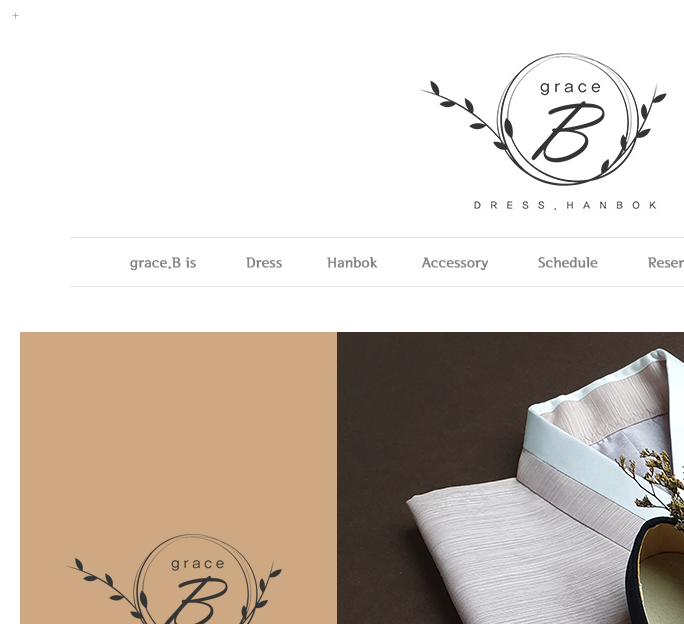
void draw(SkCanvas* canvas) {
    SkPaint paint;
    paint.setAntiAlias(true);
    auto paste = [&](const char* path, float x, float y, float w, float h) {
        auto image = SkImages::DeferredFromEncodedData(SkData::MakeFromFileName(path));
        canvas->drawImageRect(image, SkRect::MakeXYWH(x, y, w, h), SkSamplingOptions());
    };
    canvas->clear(SK_ColorWHITE);
    paste("pic1.png", 12, 12, 7, 7);
    paste("pic2.png", 420, 53, 247, 163);
    paste("pic3.png", 70, 237, 152, 50);
    paste("pic4.png", 222, 237, 83, 50);
    paste("pic5.png", 305, 237, 96, 50);
    paste("pic6.png", 401, 237, 111, 50);
    paste("pic7.png", 512, 237, 112, 50);
    paste("pic8.png", 624, 237, 60, 50);
    paste("pic9.png", 20, 332, 664, 292);
}
